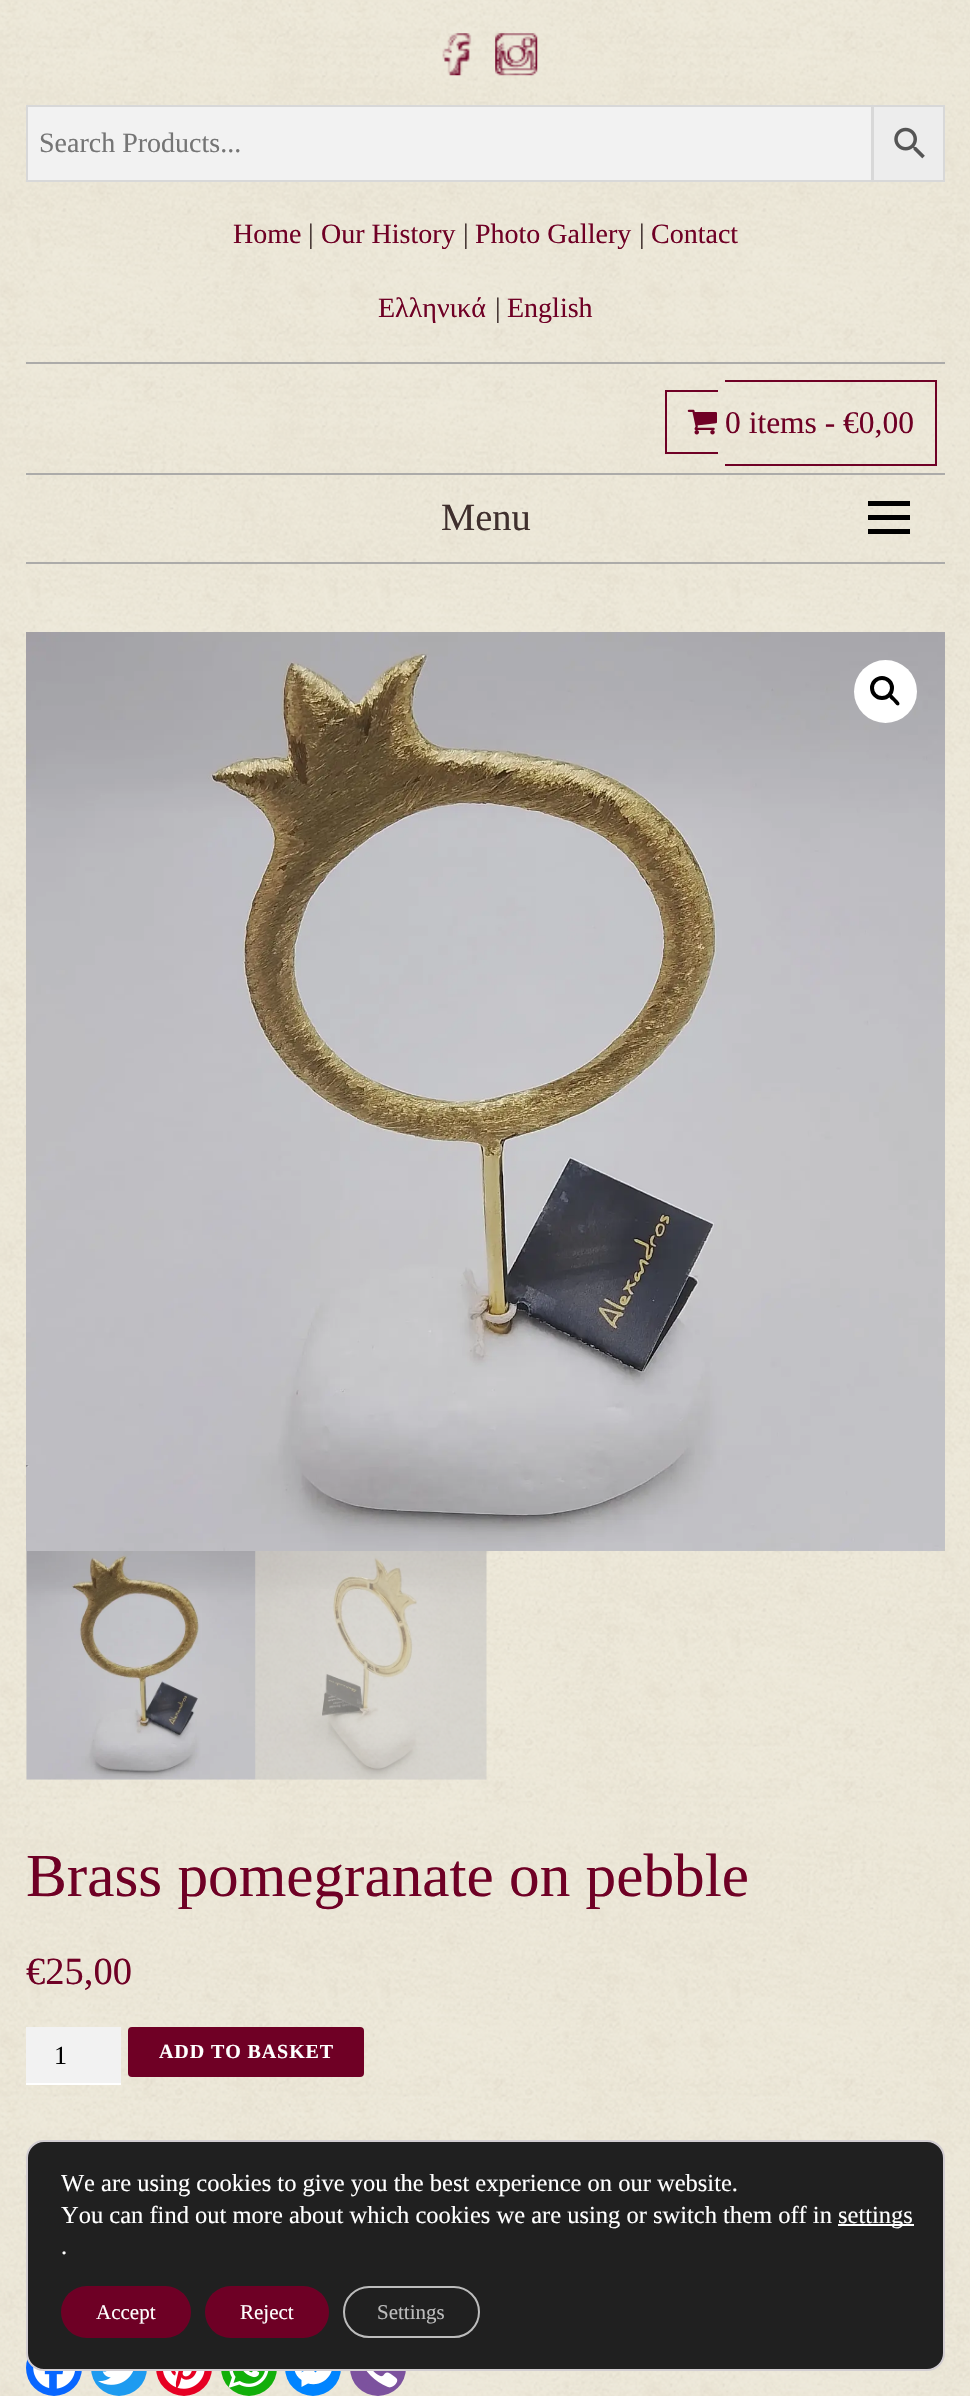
void draw(SkCanvas* canvas) {
    SkPaint paint;
    paint.setAntiAlias(true);
    auto face = [&](const char* family, int weight, float size, bool italic = false) {
        SkFontStyle style(weight, SkFontStyle::kNormal_Width,
            italic ? SkFontStyle::kItalic_Slant : SkFontStyle::kUpright_Slant);
        SkFont result(fontMgr->matchFamilyStyle(family, style), size);
        result.setSubpixel(true);
        return result;
    };
    auto write = [&](const char* s, float x, float y, const SkFont& font, SkColor color) {
        SkPaint ink(SkColor4f::FromColor(color));
        ink.setAntiAlias(true);
        canvas->drawString(s, x, y, font, ink);
    };
    auto writeSpaced = [&](const char* s, float x, float y, const SkFont& font, const SkPaint& ink, float letter, float word) {
        std::vector<SkGlyphID> glyphs(font.countText(s, strlen(s), SkTextEncoding::kUTF8));
        std::vector<float> xs(glyphs.size());
        font.textToGlyphs(s, strlen(s), SkTextEncoding::kUTF8, glyphs);
        font.getXPos(glyphs, xs, x);
        float extra = 0;
        for (size_t i = 0; i < glyphs.size(); i++) {
            xs[i] += extra;
            extra += letter + word * (glyphs[i] == font.unicharToGlyph(' '));
        }
        canvas->drawTextBlob(SkTextBlob::MakeFromPosHGlyphs(glyphs, xs, y, font), 0, 0, ink);
    };
    auto block = [&](float x, float y, float w, float h, SkColor color) {
        SkPaint ink(SkColor4f::FromColor(color));
        ink.setAntiAlias(true);
        canvas->drawRect(SkRect::MakeXYWH(x, y, w, h), ink);
    };
    auto card = [&](float x, float y, float w, float h, float radius, SkColor color) {
        SkPaint ink(SkColor4f::FromColor(color));
        ink.setAntiAlias(true);
        canvas->drawRoundRect(SkRect::MakeXYWH(x, y, w, h), radius, radius, ink);
    };
    auto paste = [&](const char* path, float x, float y, float w, float h) {
        auto image = SkImages::DeferredFromEncodedData(SkData::MakeFromFileName(path));
        canvas->drawImageRect(image, SkRect::MakeXYWH(x, y, w, h), SkSamplingOptions());
    };
    canvas->clear(SK_ColorWHITE);
    paste("pic1.png", 0, 0, 970, 2396);
    block(26, 362, 919, 2, SkColorSetRGB(172, 171, 169));
    paste("pic2.png", 442, 33, 30, 43);
    paste("pic3.png", 495, 33, 43, 43);
    paint.setColor(SkColorSetRGB(237, 237, 237));
    canvas->drawRect(SkRect::MakeXYWH(873, 106, 71, 75), paint);
    paint.setStyle(SkPaint::kStroke_Style);
    paint.setStrokeWidth(2);
    paint.setColor(SkColorSetRGB(216, 216, 216));
    canvas->drawRect(SkRect::MakeXYWH(873, 106, 71, 75), paint);
    paint.setStyle(SkPaint::kFill_Style);
    paint.setColor(SkColorSetRGB(242, 242, 242));
    canvas->drawRect(SkRect::MakeXYWH(27, 106, 845, 75), paint);
    paint.setStyle(SkPaint::kStroke_Style);
    paint.setColor(SkColorSetRGB(216, 216, 216));
    canvas->drawRect(SkRect::MakeXYWH(27, 106, 845, 75), paint);
    auto kFont1 = face("Tinos", 400, 28);
    write("Search Products...", 39, 152, kFont1, SkColorSetRGB(117, 117, 117));
    paste("pic4.png", 894, 127, 31, 32);
    write("Home", 233, 243, kFont1, SkColorSetRGB(111, 0, 37));
    write("|", 308, 243, kFont1, SkColorSetRGB(63, 47, 45));
    write("Our History", 321, 243, kFont1, SkColorSetRGB(111, 0, 37));
    write("|", 463, 243, kFont1, SkColorSetRGB(63, 47, 45));
    write("Photo Gallery", 475, 243, kFont1, SkColorSetRGB(111, 0, 37));
    write("|", 639, 243, kFont1, SkColorSetRGB(63, 47, 45));
    write("Contact", 651, 243, kFont1, SkColorSetRGB(111, 0, 37));
    write("Ελληνικά", 378, 317, kFont1, SkColorSetRGB(111, 0, 37));
    write("|", 495, 317, kFont1, SkColorSetRGB(63, 47, 45));
    write("English", 507, 317, kFont1, SkColorSetRGB(111, 0, 37));
    block(665, 390, 53, 2, SkColorSetRGB(111, 0, 37));
    block(665, 452, 53, 2, SkColorSetRGB(111, 0, 37));
    block(665, 390, 2, 63, SkColorSetRGB(111, 0, 37));
    block(725, 380, 211, 2, SkColorSetRGB(111, 0, 37));
    block(725, 464, 92, 2, SkColorSetRGB(111, 0, 37));
    block(935, 380, 2, 86, SkColorSetRGB(111, 0, 37));
    block(817, 464, 119, 2, SkColorSetRGB(111, 0, 37));
    paste("pic5.png", 687, 409, 30, 26);
    auto kFont2 = face("Tinos", 400, 31.5f);
    write("0 items - €0,00", 725, 433, kFont2, SkColorSetRGB(111, 0, 37));
    block(26, 473, 919, 2, SkColorSetRGB(172, 171, 169));
    block(26, 562, 919, 2, SkColorSetRGB(172, 171, 169));
    auto kFont3 = face("Tinos", 400, 38.5f);
    write("Menu", 441, 530, kFont3, SkColorSetRGB(63, 47, 45));
    block(868, 515, 42, 5, SK_ColorBLACK);
    block(868, 501, 42, 5, SK_ColorBLACK);
    block(868, 529, 42, 5, SK_ColorBLACK);
    paste("pic6.png", 26, 632, 919, 919);
    paint.setStyle(SkPaint::kFill_Style);
    paint.setColor(SK_ColorWHITE);
    canvas->drawCircle(885.5f, 691.5f, 31.5f, paint);
    paint.setStyle(SkPaint::kStroke_Style);
    paint.setStrokeWidth(4);
    paint.setColor(SK_ColorBLACK);
    canvas->drawCircle(882, 688, 10, paint);
    paint.setStyle(SkPaint::kFill_Style);
    canvas->drawPath(SkPathBuilder().moveTo(889.5f, 695).cubicTo(891.5f, 693, 894.5f, 697.5f, 895.5f, 698.5f).cubicTo(896.5f, 699.5f, 901, 703, 899, 705).cubicTo(897, 707, 894, 702, 893, 701).cubicTo(892, 700, 887.5f, 697, 889.5f, 695).close().detach(), paint);
    paste("pic7.png", 26, 1551, 230, 229);
    paste("pic8.png", 255, 1551, 232, 229);
    auto kFont4 = face("Tinos", 400, 61.25f);
    write("Brass pomegranate on pebble", 26, 1896, kFont4, SkColorSetRGB(111, 0, 37));
    write("€25,00", 26, 1984, kFont3, SkColorSetRGB(111, 0, 37));
    block(26, 2027, 95, 56, SkColorSetRGB(242, 242, 242));
    block(26, 2083, 95, 2, SK_ColorWHITE);
    auto kFont5 = face("Tinos", 400, 26);
    write("1", 54, 2064, kFont5, SK_ColorBLACK);
    card(128, 2027, 236, 50, 4, SkColorSetRGB(111, 0, 37));
    auto kFont6 = face("Tinos", 700, 20);
    paint.setColor(SK_ColorWHITE);
    writeSpaced("ADD TO BASKET", 159, 2058, kFont6, paint, 0.9f, 0);
    paint.setColor(SkColorSetRGB(8, 102, 255));
    canvas->drawCircle(54, 2368, 28, paint);
    paste("pic9.png", 33, 2367, 42, 22);
    paint.setColor(SkColorSetRGB(29, 155, 240));
    canvas->drawCircle(119, 2368, 28, paint);
    paste("pic10.png", 98, 2371, 36, 14);
    paint.setColor(SkColorSetRGB(230, 0, 35));
    canvas->drawCircle(184, 2368, 28, paint);
    paste("pic11.png", 163, 2371, 42, 18);
    paint.setColor(SkColorSetRGB(18, 175, 10));
    canvas->drawCircle(249, 2368, 28, paint);
    paste("pic12.png", 228, 2371, 41, 17);
    paint.setColor(SkColorSetRGB(0, 132, 255));
    canvas->drawCircle(313, 2368, 28, paint);
    paint.setColor(SK_ColorWHITE);
    canvas->drawPath(SkPathBuilder().moveTo(313, 2348.5f).cubicTo(296, 2348.5f, 287, 2369.5f, 301.5f, 2380).lineTo(301.5f, 2387).lineTo(308, 2383.5f).cubicTo(325.5f, 2388.5f, 341.5f, 2367.5f, 326.5f, 2353.5f).cubicTo(323, 2350.5f, 318, 2348.5f, 313, 2348.5f).moveTo(315.5f, 2372.5f).lineTo(310.5f, 2367.5f).lineTo(301, 2372.5f).lineTo(311, 2361.5f).lineTo(316, 2366.5f).lineTo(325.5f, 2361.5f).close().detach(), paint);
    paint.setColor(SkColorSetRGB(124, 82, 158));
    canvas->drawCircle(378, 2368, 28, paint);
    paste("pic13.png", 366, 2371, 32, 17);
    paint.setColor(SkColorSetRGB(32, 32, 32));
    canvas->drawRoundRect(SkRect::MakeXYWH(27, 2141, 917, 229), 17, 17, paint);
    paint.setStyle(SkPaint::kStroke_Style);
    paint.setStrokeWidth(2);
    paint.setColor(SkColorSetRGB(211, 206, 210));
    canvas->drawRoundRect(SkRect::MakeXYWH(27, 2141, 917, 229), 17, 17, paint);
    auto kFont7 = face("Tinos", 400, 24.5f);
    write("We are using cookies to give you the best experience on our website.", 61, 2191, kFont7, SK_ColorWHITE);
    write("You can find out more about which cookies we are using or switch them off in", 61, 2223, kFont7, SK_ColorWHITE);
    block(838, 2224, 76, 2, SK_ColorWHITE);
    write("settings", 838, 2223, kFont7, SK_ColorWHITE);
    write(".", 61, 2254, kFont7, SK_ColorWHITE);
    card(61, 2286, 130, 52, 26, SkColorSetRGB(110, 0, 37));
    auto kFont8 = face("Tinos", 400, 21);
    write("Accept", 96, 2319, kFont8, SK_ColorWHITE);
    card(205, 2286, 124, 52, 26, SkColorSetRGB(110, 0, 37));
    write("Reject", 240, 2319, kFont8, SK_ColorWHITE);
    paint.setColor(SkColorSetRGB(188, 188, 188));
    canvas->drawRoundRect(SkRect::MakeXYWH(344, 2287, 135, 50), 25, 25, paint);
    write("Settings", 377, 2319, kFont8, SkColorSetRGB(188, 188, 188));
}
